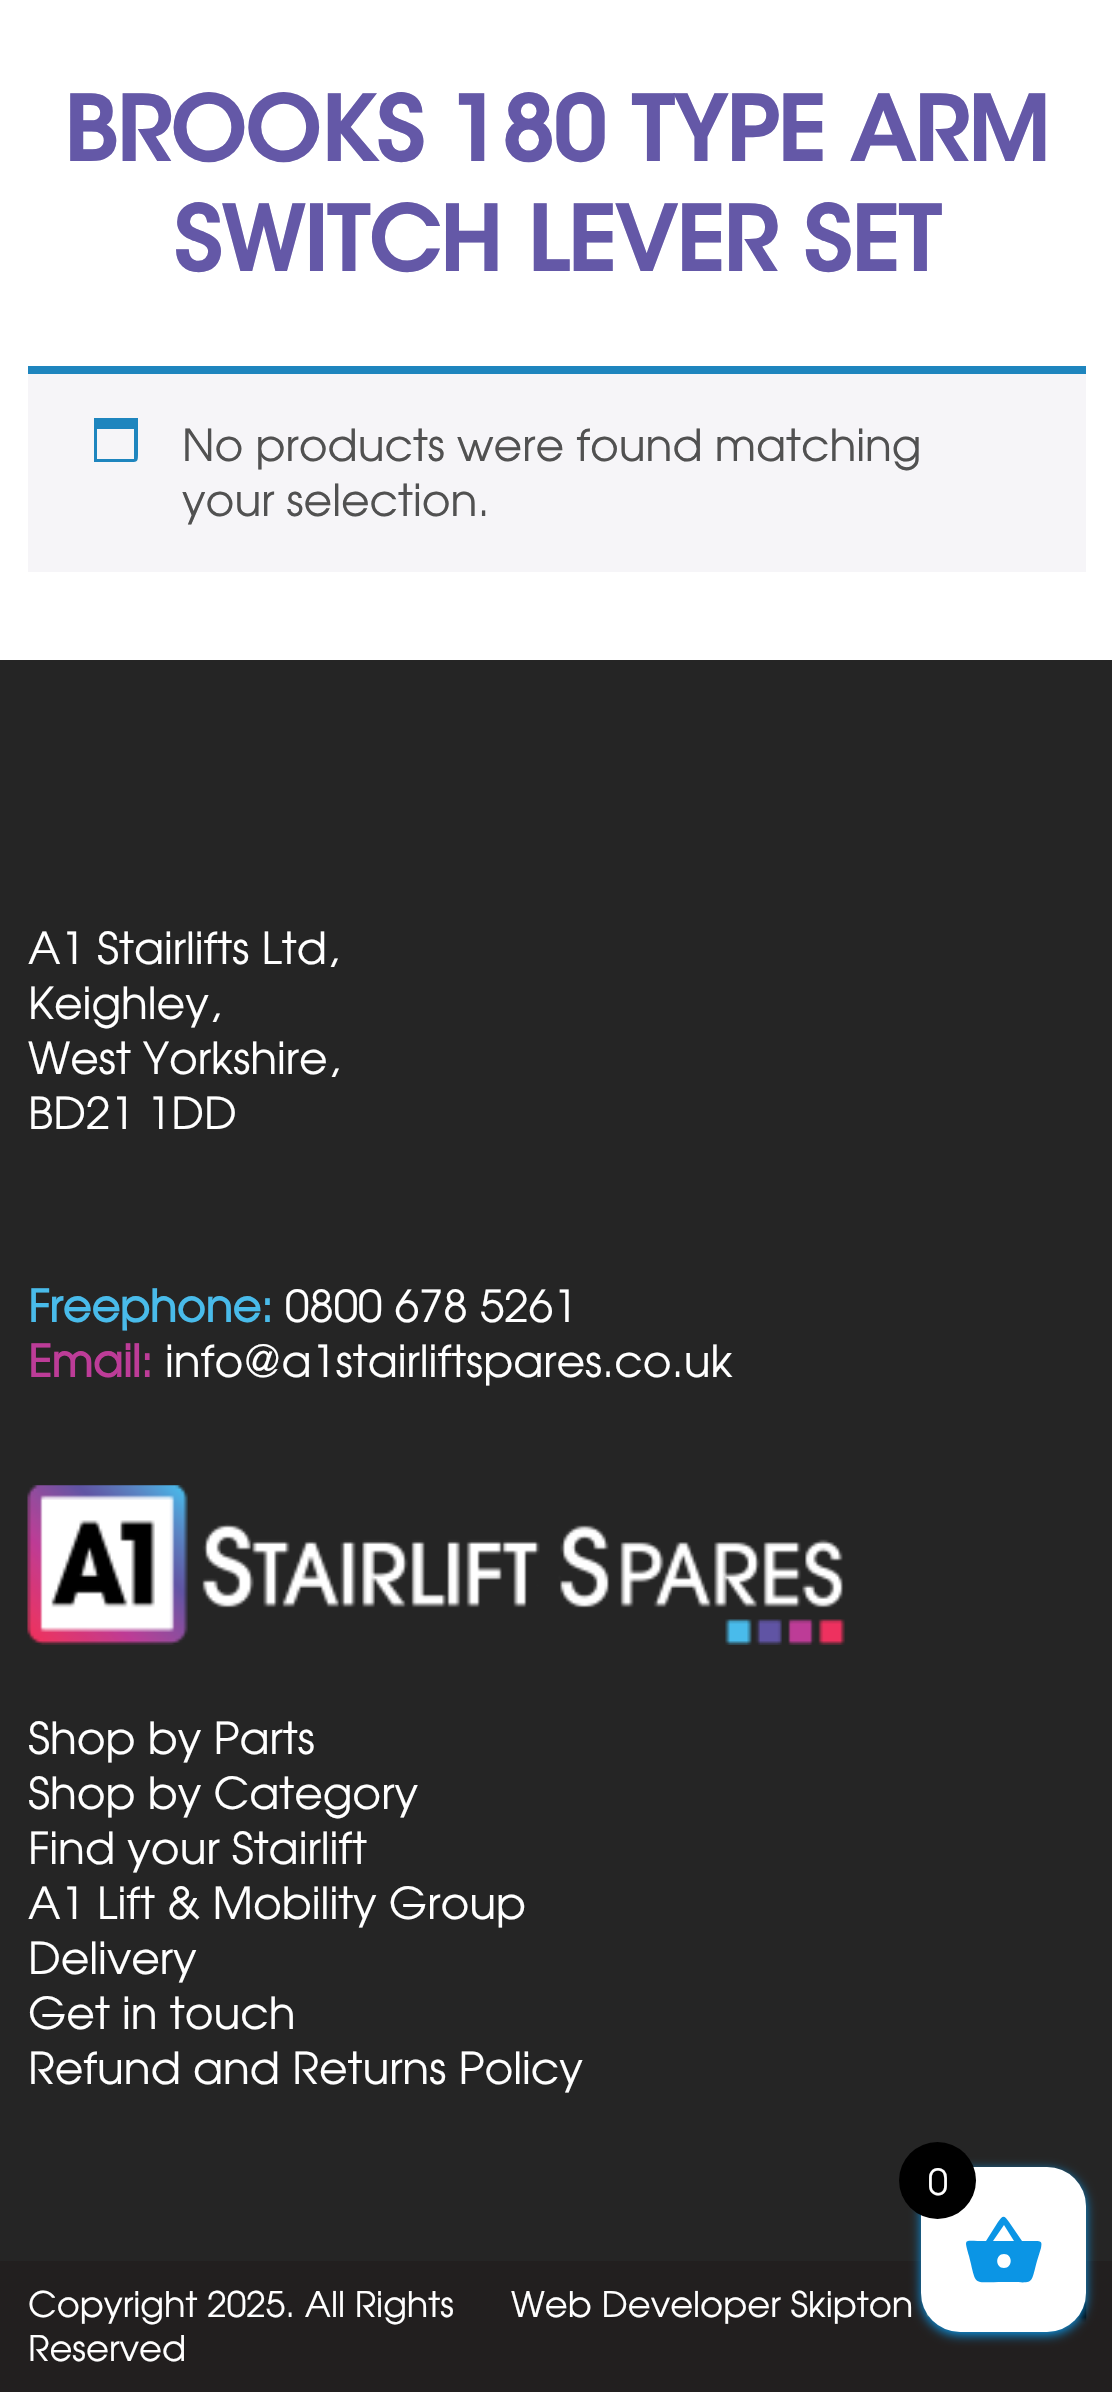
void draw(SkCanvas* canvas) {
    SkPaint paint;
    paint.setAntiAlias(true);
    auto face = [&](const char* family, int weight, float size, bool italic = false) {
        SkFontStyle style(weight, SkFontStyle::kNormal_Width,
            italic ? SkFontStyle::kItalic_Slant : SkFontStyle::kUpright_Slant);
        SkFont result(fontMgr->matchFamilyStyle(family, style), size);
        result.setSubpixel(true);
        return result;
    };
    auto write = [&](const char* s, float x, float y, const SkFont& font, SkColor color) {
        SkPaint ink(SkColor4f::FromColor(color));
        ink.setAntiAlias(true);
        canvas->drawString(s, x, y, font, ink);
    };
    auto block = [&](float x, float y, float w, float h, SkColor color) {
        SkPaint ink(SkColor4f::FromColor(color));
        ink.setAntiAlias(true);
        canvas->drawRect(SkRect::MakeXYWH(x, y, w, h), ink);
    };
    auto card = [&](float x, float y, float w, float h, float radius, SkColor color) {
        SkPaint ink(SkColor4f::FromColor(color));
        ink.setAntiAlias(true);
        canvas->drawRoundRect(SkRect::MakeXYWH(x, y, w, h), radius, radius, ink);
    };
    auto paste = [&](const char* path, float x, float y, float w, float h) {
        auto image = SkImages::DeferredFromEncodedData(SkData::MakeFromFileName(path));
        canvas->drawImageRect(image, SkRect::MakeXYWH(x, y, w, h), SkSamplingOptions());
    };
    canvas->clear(SK_ColorWHITE);
    auto kFont1 = face("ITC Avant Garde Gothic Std", 700, 88);
    write("BROOKS 180 TYPE ARM", 64, 161, kFont1, SkColorSetRGB(100, 88, 167));
    write("SWITCH LEVER SET", 173, 271, kFont1, SkColorSetRGB(100, 88, 167));
    block(28, 374, 1058, 198, SkColorSetRGB(246, 245, 248));
    block(28, 366, 1058, 8, SkColorSetRGB(30, 133, 190));
    paint.setColor(SkColorSetRGB(30, 133, 190));
    canvas->drawPath(SkPathBuilder().moveTo(134, 429).lineTo(97, 429).lineTo(97, 459).lineTo(134, 459).close().moveTo(138, 418).lineTo(138, 452).cubicTo(138, 463, 138, 462, 127, 462).lineTo(94, 462).lineTo(94, 418).close().detach(), paint);
    auto kFont2 = face("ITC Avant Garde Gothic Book", 400, 44);
    write("No products were found matching", 182, 461, kFont2, SkColorSetRGB(81, 81, 81));
    write("your selection.", 182, 516, kFont2, SkColorSetRGB(81, 81, 81));
    block(0, 660, 1112, 1601, SkColorSetRGB(37, 37, 37));
    write("A1 Stairlifts Ltd,", 28, 964, kFont2, SK_ColorWHITE);
    write("Keighley,", 28, 1019, kFont2, SK_ColorWHITE);
    write("West Yorkshire,", 28, 1074, kFont2, SK_ColorWHITE);
    write("BD21 1DD", 28, 1129, kFont2, SK_ColorWHITE);
    auto kFont3 = face("ITC Avant Garde Gothic Book", 700, 44);
    write("Freephone:", 28, 1322, kFont3, SkColorSetRGB(73, 187, 234));
    write("0800 678 5261", 285, 1322, kFont2, SK_ColorWHITE);
    write("Email:", 28, 1377, kFont3, SkColorSetRGB(189, 60, 152));
    write("info@a1stairliftspares.co.uk", 165, 1377, kFont2, SK_ColorWHITE);
    paste("pic1.png", 27, 1485, 818, 160);
    write("Shop by Parts", 28, 1754, kFont2, SK_ColorWHITE);
    write("Shop by Category", 28, 1809, kFont2, SK_ColorWHITE);
    write("Find your Stairlift", 28, 1864, kFont2, SK_ColorWHITE);
    write("A1 Lift & Mobility Group", 28, 1919, kFont2, SK_ColorWHITE);
    write("Delivery", 28, 1974, kFont2, SK_ColorWHITE);
    write("Get in touch", 28, 2029, kFont2, SK_ColorWHITE);
    write("Refund and Returns Policy", 28, 2084, kFont2, SK_ColorWHITE);
    block(0, 2261, 1112, 131, SkColorSetRGB(34, 31, 31));
    paste("pic2.png", 926, 2298, 161, 32);
    paint.setColor(SkColorSetRGB(11, 149, 229));
    paint.setMaskFilter(SkMaskFilter::MakeBlur(kNormal_SkBlurStyle, 5.5f));
    canvas->drawRoundRect(SkRect::MakeXYWH(921, 2170, 165, 165), 39, 39, paint);
    paint.setMaskFilter(nullptr);
    card(921, 2167, 165, 165, 39, SK_ColorWHITE);
    canvas->drawPath(SkPathBuilder().moveTo(1004, 2268).cubicTo(1013, 2268, 1013, 2254, 1004, 2254).cubicTo(995, 2254, 995, 2268, 1004, 2268).close().moveTo(993, 2241).lineTo(1014, 2241).lineTo(1004, 2225).close().moveTo(1022, 2241).lineTo(1035, 2241).cubicTo(1042, 2241, 1042, 2242, 1041, 2248).lineTo(1037, 2261).cubicTo(1030, 2287, 1035, 2282, 1004, 2282).cubicTo(971, 2282, 977, 2287, 969, 2256).cubicTo(964, 2237, 963, 2241, 986, 2241).lineTo(998, 2222).cubicTo(1003, 2215, 1004, 2215, 1009, 2222).close().detach(), paint);
    paint.setColor(SK_ColorBLACK);
    canvas->drawCircle(937.5f, 2180.5f, 38.5f, paint);
    auto kFont4 = face("ITC Avant Garde Gothic Book", 400, 36);
    write("0", 928, 2195, kFont4, SK_ColorWHITE);
    auto kFont5 = face("ITC Avant Garde Gothic Book", 400, 35.25f);
    write("Copyright 2025. All Rights", 28, 2317, kFont5, SK_ColorWHITE);
    write("Reserved", 28, 2361, kFont5, SK_ColorWHITE);
    write("Web Developer Skipton", 511, 2317, kFont5, SK_ColorWHITE);
}
